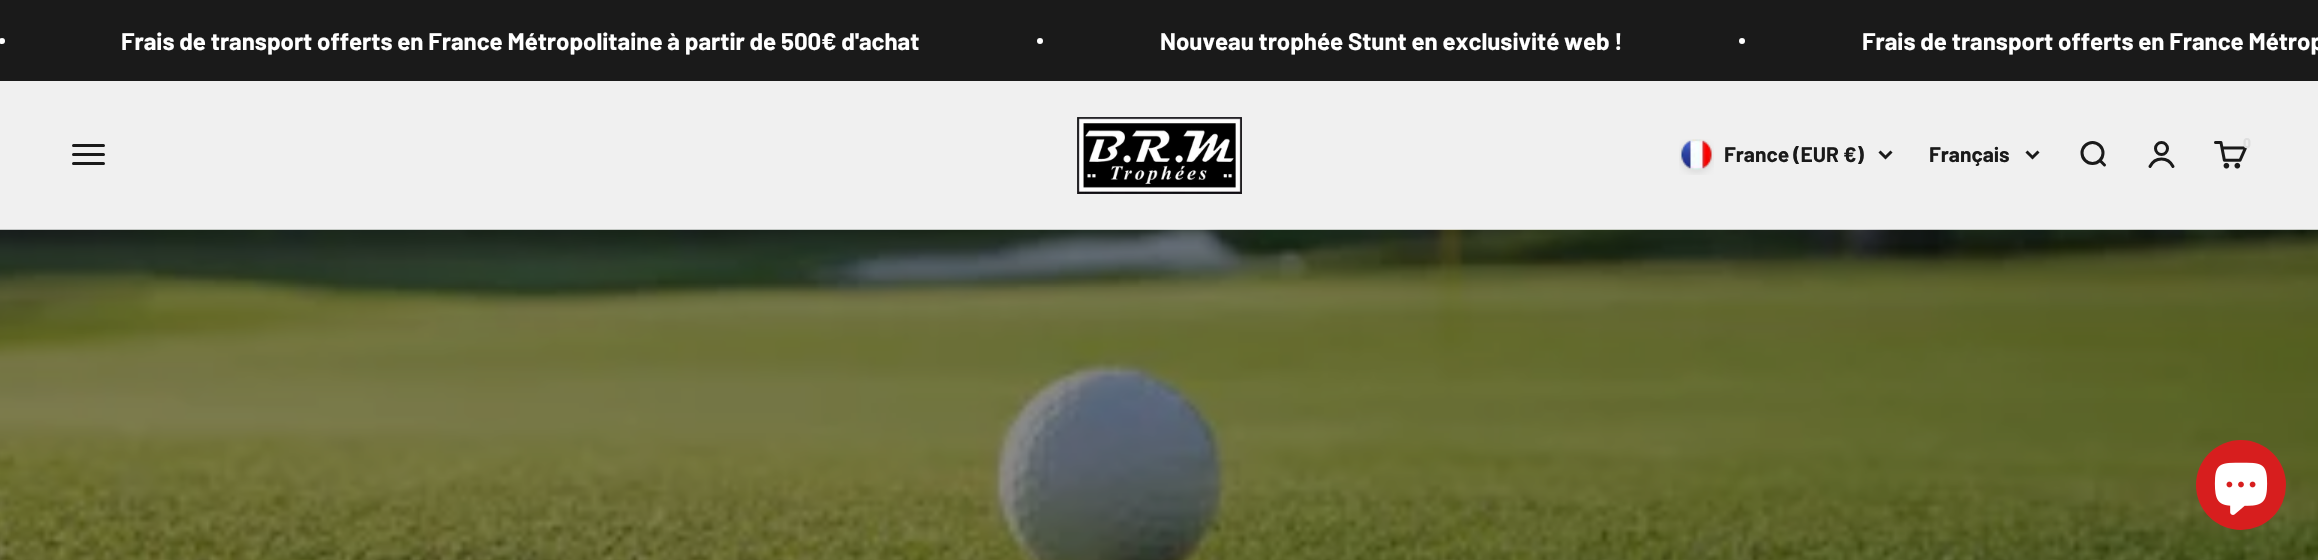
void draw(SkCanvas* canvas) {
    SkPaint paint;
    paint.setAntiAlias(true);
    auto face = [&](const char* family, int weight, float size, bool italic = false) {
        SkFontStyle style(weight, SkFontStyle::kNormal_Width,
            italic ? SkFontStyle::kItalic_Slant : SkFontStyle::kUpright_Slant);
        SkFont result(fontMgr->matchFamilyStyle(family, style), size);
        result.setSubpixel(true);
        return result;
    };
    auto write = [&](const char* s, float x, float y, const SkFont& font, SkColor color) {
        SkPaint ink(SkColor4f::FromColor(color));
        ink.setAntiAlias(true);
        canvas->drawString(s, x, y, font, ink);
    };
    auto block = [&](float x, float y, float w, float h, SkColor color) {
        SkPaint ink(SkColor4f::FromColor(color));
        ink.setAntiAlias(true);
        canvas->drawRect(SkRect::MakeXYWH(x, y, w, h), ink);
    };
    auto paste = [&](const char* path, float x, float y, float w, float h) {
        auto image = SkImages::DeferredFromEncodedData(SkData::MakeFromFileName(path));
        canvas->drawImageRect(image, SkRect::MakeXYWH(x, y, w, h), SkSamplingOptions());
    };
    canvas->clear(SkColorSetRGB(240, 240, 240));
    block(0, 0, 2318, 81, SkColorSetRGB(26, 26, 26));
    paint.setColor(SK_ColorWHITE);
    canvas->drawCircle(2, 41, 3, paint);
    auto kFont1 = face("Barlow", 700, 24);
    write("Frais de transport offerts en France Métropolitaine à partir de 500€ d'achat", 121, 50, kFont1, SK_ColorWHITE);
    canvas->drawCircle(1040, 41, 3, paint);
    write("Nouveau trophée Stunt en exclusivité web !", 1160, 50, kFont1, SK_ColorWHITE);
    canvas->drawCircle(1742, 41, 3, paint);
    write("Frais de transport offerts en France Métrop", 1862, 50, kFont1, SK_ColorWHITE);
    paste("pic4.png", 0, 229, 2318, 331);
    block(0, 229, 2318, 1, SkColorSetARGB(196, 240, 240, 240));
    paint.setStyle(SkPaint::kStroke_Style);
    paint.setStrokeWidth(3);
    paint.setStrokeCap(SkPaint::kRound_Cap);
    paint.setColor(SkColorSetRGB(26, 26, 26));
    canvas->drawPath(SkPathBuilder().moveTo(73.5f, 145.5f).lineTo(103.5f, 145.5f).moveTo(73.5f, 154.5f).lineTo(103.5f, 154.5f).moveTo(73.5f, 163.5f).lineTo(103.5f, 163.5f).detach(), paint);
    paste("pic1.png", 1077, 117, 165, 77);
    paste("pic2.png", 1679, 139, 35, 36);
    auto kFont2 = face("Barlow", 700, 21);
    write("France (EUR €)", 1724, 162, kFont2, SkColorSetRGB(26, 26, 26));
    paint.setStrokeCap(SkPaint::kButt_Cap);
    canvas->drawPath(SkPathBuilder().moveTo(1879.5f, 151.5f).lineTo(1885.5f, 157.5f).lineTo(1891.5f, 151.5f).detach(), paint);
    write("Français", 1929, 162, kFont2, SkColorSetRGB(26, 26, 26));
    canvas->drawPath(SkPathBuilder().moveTo(2026.5f, 151.5f).lineTo(2032.5f, 157.5f).lineTo(2038.5f, 151.5f).detach(), paint);
    canvas->drawCircle(2092.5f, 153, 10.5f, paint);
    paint.setStrokeCap(SkPaint::kRound_Cap);
    paint.setStrokeJoin(SkPaint::kRound_Join);
    canvas->drawPath(SkPathBuilder().moveTo(2100, 160.5f).lineTo(2104.5f, 165).detach(), paint);
    paint.setStrokeCap(SkPaint::kButt_Cap);
    paint.setStrokeJoin(SkPaint::kMiter_Join);
    canvas->drawCircle(2161.5f, 148.5f, 6, paint);
    paint.setStrokeCap(SkPaint::kRound_Cap);
    canvas->drawPath(SkPathBuilder().moveTo(2150, 166.5f).cubicTo(2155, 156.5f, 2168, 156.5f, 2173, 166.5f).detach(), paint);
    paste("pic3.png", 2214, 141, 33, 28);
    auto kFont3 = face("Barlow", 700, 14);
    write("0", 2243, 148, kFont3, SkColorSetRGB(223, 223, 223));
    paint.setStyle(SkPaint::kFill_Style);
    paint.setColor(SkColorSetRGB(215, 30, 30));
    canvas->drawCircle(2241, 485, 45, paint);
    paste("pic5.png", 2214, 462, 54, 53);
}
